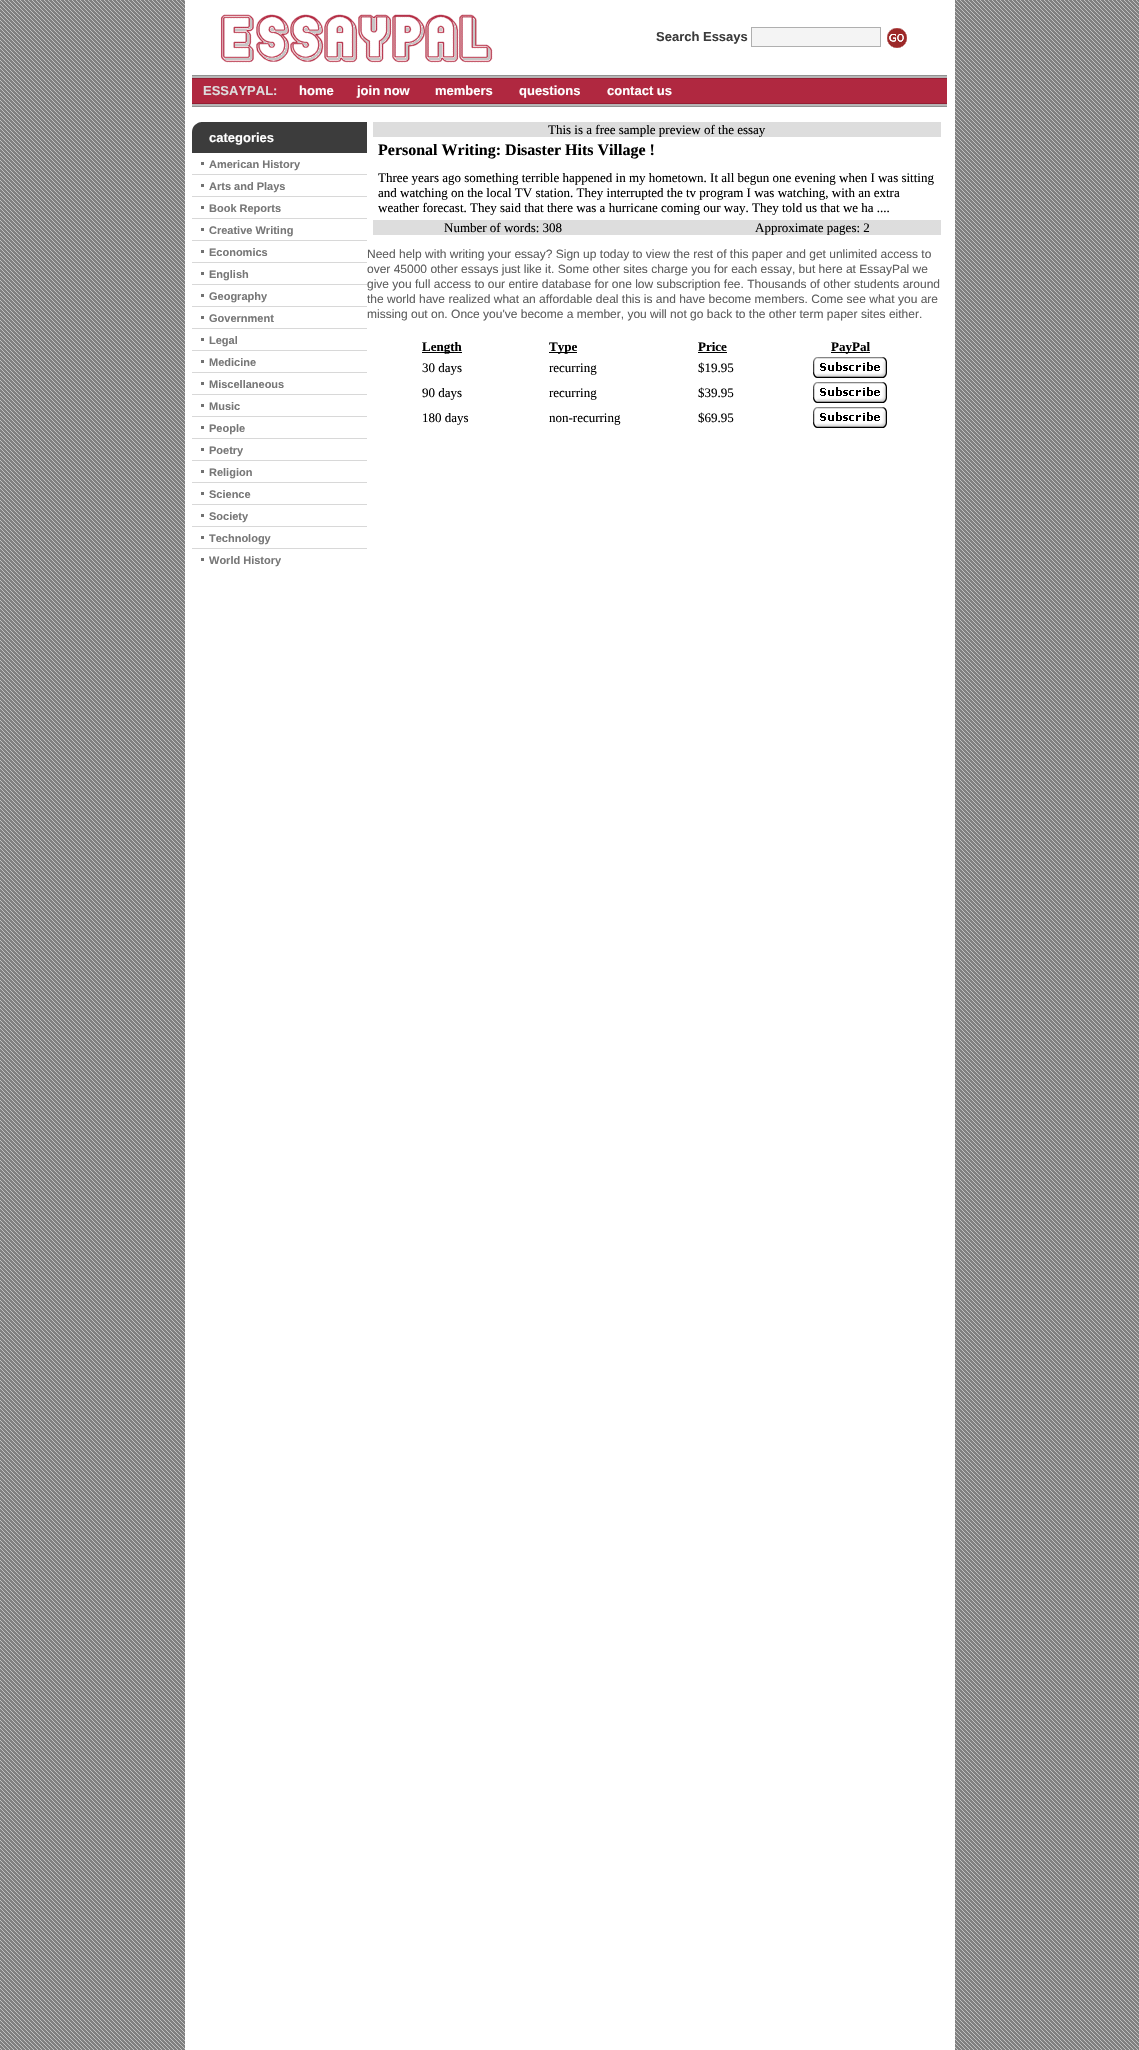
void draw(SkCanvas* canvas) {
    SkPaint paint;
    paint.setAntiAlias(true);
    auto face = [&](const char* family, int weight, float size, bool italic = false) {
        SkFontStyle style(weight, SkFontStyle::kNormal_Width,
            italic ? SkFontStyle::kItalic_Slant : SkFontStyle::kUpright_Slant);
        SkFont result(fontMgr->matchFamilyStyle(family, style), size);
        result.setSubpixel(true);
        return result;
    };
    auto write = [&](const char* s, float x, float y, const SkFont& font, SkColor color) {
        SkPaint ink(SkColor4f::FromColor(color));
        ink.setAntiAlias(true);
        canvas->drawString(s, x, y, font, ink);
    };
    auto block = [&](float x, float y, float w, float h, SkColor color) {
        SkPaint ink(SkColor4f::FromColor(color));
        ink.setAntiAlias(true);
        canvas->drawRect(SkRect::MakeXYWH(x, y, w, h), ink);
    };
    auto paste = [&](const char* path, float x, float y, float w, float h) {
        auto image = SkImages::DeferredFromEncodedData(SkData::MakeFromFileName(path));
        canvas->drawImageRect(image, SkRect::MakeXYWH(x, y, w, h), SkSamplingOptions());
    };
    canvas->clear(SK_ColorWHITE);
    paste("pic1.png", 0, 0, 1139, 2050);
    block(185, 0, 770, 2050, SK_ColorWHITE);
    paste("pic2.png", 220, 14, 273, 49);
    auto kFont1 = face("Liberation Sans", 700, 13);
    write("Search Essays", 656, 41, kFont1, SkColorSetRGB(60, 60, 60));
    paint.setColor(SkColorSetRGB(244, 244, 244));
    canvas->drawRect(SkRect::MakeXYWH(751.5f, 27.5f, 129, 19), paint);
    paint.setStyle(SkPaint::kStroke_Style);
    paint.setStrokeWidth(1);
    paint.setColor(SkColorSetRGB(175, 175, 175));
    canvas->drawRect(SkRect::MakeXYWH(751.5f, 27.5f, 129, 19), paint);
    paste("pic3.png", 887, 28, 20, 20);
    paste("pic4.png", 192, 75, 755, 32);
    write("ESSAYPAL:", 203, 95, kFont1, SkColorSetRGB(221, 221, 221));
    write("home", 299, 95, kFont1, SK_ColorWHITE);
    write("join now", 357, 95, kFont1, SK_ColorWHITE);
    write("members", 435, 95, kFont1, SK_ColorWHITE);
    write("questions", 519, 95, kFont1, SK_ColorWHITE);
    write("contact us", 607, 95, kFont1, SK_ColorWHITE);
    paste("pic5.png", 192, 122, 175, 31);
    write("categories", 209, 142, kFont1, SK_ColorWHITE);
    block(192, 174, 175, 1, SkColorSetRGB(216, 216, 216));
    block(201, 162, 3, 3, SkColorSetRGB(113, 113, 113));
    auto kFont2 = face("Liberation Sans", 700, 11);
    write("American History", 209, 168, kFont2, SkColorSetRGB(119, 119, 119));
    block(192, 196, 175, 1, SkColorSetRGB(216, 216, 216));
    block(201, 184, 3, 3, SkColorSetRGB(113, 113, 113));
    write("Arts and Plays", 209, 190, kFont2, SkColorSetRGB(119, 119, 119));
    block(192, 218, 175, 1, SkColorSetRGB(216, 216, 216));
    block(201, 206, 3, 3, SkColorSetRGB(113, 113, 113));
    write("Book Reports", 209, 212, kFont2, SkColorSetRGB(119, 119, 119));
    block(192, 240, 175, 1, SkColorSetRGB(216, 216, 216));
    block(201, 228, 3, 3, SkColorSetRGB(113, 113, 113));
    write("Creative Writing", 209, 234, kFont2, SkColorSetRGB(119, 119, 119));
    block(192, 262, 175, 1, SkColorSetRGB(216, 216, 216));
    block(201, 250, 3, 3, SkColorSetRGB(113, 113, 113));
    write("Economics", 209, 256, kFont2, SkColorSetRGB(119, 119, 119));
    block(192, 284, 175, 1, SkColorSetRGB(216, 216, 216));
    block(201, 272, 3, 3, SkColorSetRGB(113, 113, 113));
    write("English", 209, 278, kFont2, SkColorSetRGB(119, 119, 119));
    block(192, 306, 175, 1, SkColorSetRGB(216, 216, 216));
    block(201, 294, 3, 3, SkColorSetRGB(113, 113, 113));
    write("Geography", 209, 300, kFont2, SkColorSetRGB(119, 119, 119));
    block(192, 328, 175, 1, SkColorSetRGB(216, 216, 216));
    block(201, 316, 3, 3, SkColorSetRGB(113, 113, 113));
    write("Government", 209, 322, kFont2, SkColorSetRGB(119, 119, 119));
    block(192, 350, 175, 1, SkColorSetRGB(216, 216, 216));
    block(201, 338, 3, 3, SkColorSetRGB(113, 113, 113));
    write("Legal", 209, 344, kFont2, SkColorSetRGB(119, 119, 119));
    block(192, 372, 175, 1, SkColorSetRGB(216, 216, 216));
    block(201, 360, 3, 3, SkColorSetRGB(113, 113, 113));
    write("Medicine", 209, 366, kFont2, SkColorSetRGB(119, 119, 119));
    block(192, 394, 175, 1, SkColorSetRGB(216, 216, 216));
    block(201, 382, 3, 3, SkColorSetRGB(113, 113, 113));
    write("Miscellaneous", 209, 388, kFont2, SkColorSetRGB(119, 119, 119));
    block(192, 416, 175, 1, SkColorSetRGB(216, 216, 216));
    block(201, 404, 3, 3, SkColorSetRGB(113, 113, 113));
    write("Music", 209, 410, kFont2, SkColorSetRGB(119, 119, 119));
    block(192, 438, 175, 1, SkColorSetRGB(216, 216, 216));
    block(201, 426, 3, 3, SkColorSetRGB(113, 113, 113));
    write("People", 209, 432, kFont2, SkColorSetRGB(119, 119, 119));
    block(192, 460, 175, 1, SkColorSetRGB(216, 216, 216));
    block(201, 448, 3, 3, SkColorSetRGB(113, 113, 113));
    write("Poetry", 209, 454, kFont2, SkColorSetRGB(119, 119, 119));
    block(192, 482, 175, 1, SkColorSetRGB(216, 216, 216));
    block(201, 470, 3, 3, SkColorSetRGB(113, 113, 113));
    write("Religion", 209, 476, kFont2, SkColorSetRGB(119, 119, 119));
    block(192, 504, 175, 1, SkColorSetRGB(216, 216, 216));
    block(201, 492, 3, 3, SkColorSetRGB(113, 113, 113));
    write("Science", 209, 498, kFont2, SkColorSetRGB(119, 119, 119));
    block(192, 526, 175, 1, SkColorSetRGB(216, 216, 216));
    block(201, 514, 3, 3, SkColorSetRGB(113, 113, 113));
    write("Society", 209, 520, kFont2, SkColorSetRGB(119, 119, 119));
    block(192, 548, 175, 1, SkColorSetRGB(216, 216, 216));
    block(201, 536, 3, 3, SkColorSetRGB(113, 113, 113));
    write("Technology", 209, 542, kFont2, SkColorSetRGB(119, 119, 119));
    block(201, 558, 3, 3, SkColorSetRGB(113, 113, 113));
    write("World History", 209, 564, kFont2, SkColorSetRGB(119, 119, 119));
    block(373, 122, 568, 113, SkColorSetRGB(221, 221, 221));
    auto kFont3 = face("Liberation Serif", 400, 13);
    write("This is a free sample preview of the essay", 548, 134, kFont3, SK_ColorBLACK);
    block(373, 137, 568, 83, SK_ColorWHITE);
    auto kFont4 = face("Liberation Serif", 700, 16);
    write("Personal Writing: Disaster Hits Village !", 378, 155, kFont4, SK_ColorBLACK);
    write("Three years ago something terrible happened in my hometown. It all begun one evening when I was sitting", 378, 182, kFont3, SK_ColorBLACK);
    write("and watching on the local TV station. They interrupted the tv program I was watching, with an extra", 378, 197, kFont3, SK_ColorBLACK);
    write("weather forecast. They said that there was a hurricane coming our way. They told us that we ha ....", 378, 212, kFont3, SK_ColorBLACK);
    write("Number of words: 308", 444, 232, kFont3, SK_ColorBLACK);
    write("Approximate pages: 2", 755, 232, kFont3, SK_ColorBLACK);
    auto kFont5 = face("Liberation Sans", 400, 12);
    write("Need help with writing your essay? Sign up today to view the rest of this paper and get unlimited access to", 367, 258, kFont5, SkColorSetRGB(94, 94, 94));
    write("over 45000 other essays just like it. Some other sites charge you for each essay, but here at EssayPal we", 367, 273, kFont5, SkColorSetRGB(94, 94, 94));
    write("give you full access to our entire database for one low subscription fee. Thousands of other students around", 367, 288, kFont5, SkColorSetRGB(94, 94, 94));
    write("the world have realized what an affordable deal this is and have become members. Come see what you are", 367, 303, kFont5, SkColorSetRGB(94, 94, 94));
    write("missing out on. Once you've become a member, you will not go back to the other term paper sites either.", 367, 318, kFont5, SkColorSetRGB(94, 94, 94));
    block(422, 352, 40, 1, SK_ColorBLACK);
    auto kFont6 = face("Liberation Serif", 700, 13);
    write("Length", 422, 351, kFont6, SK_ColorBLACK);
    block(549, 352, 28, 1, SK_ColorBLACK);
    write("Type", 549, 351, kFont6, SK_ColorBLACK);
    write("Price", 698, 351, kFont6, SK_ColorBLACK);
    block(698, 352, 29, 1, SK_ColorBLACK);
    block(831, 352, 39, 1, SK_ColorBLACK);
    write("PayPal", 831, 351, kFont6, SK_ColorBLACK);
    write("30 days", 422, 372, kFont3, SK_ColorBLACK);
    write("recurring", 549, 372, kFont3, SK_ColorBLACK);
    write("$19.95", 698, 372, kFont3, SK_ColorBLACK);
    paste("pic6.png", 813, 357, 74, 21);
    write("90 days", 422, 397, kFont3, SK_ColorBLACK);
    write("recurring", 549, 397, kFont3, SK_ColorBLACK);
    write("$39.95", 698, 397, kFont3, SK_ColorBLACK);
    paste("pic6.png", 813, 382, 74, 21);
    write("180 days", 422, 422, kFont3, SK_ColorBLACK);
    write("non-recurring", 549, 422, kFont3, SK_ColorBLACK);
    write("$69.95", 698, 422, kFont3, SK_ColorBLACK);
    paste("pic6.png", 813, 407, 74, 21);
}
